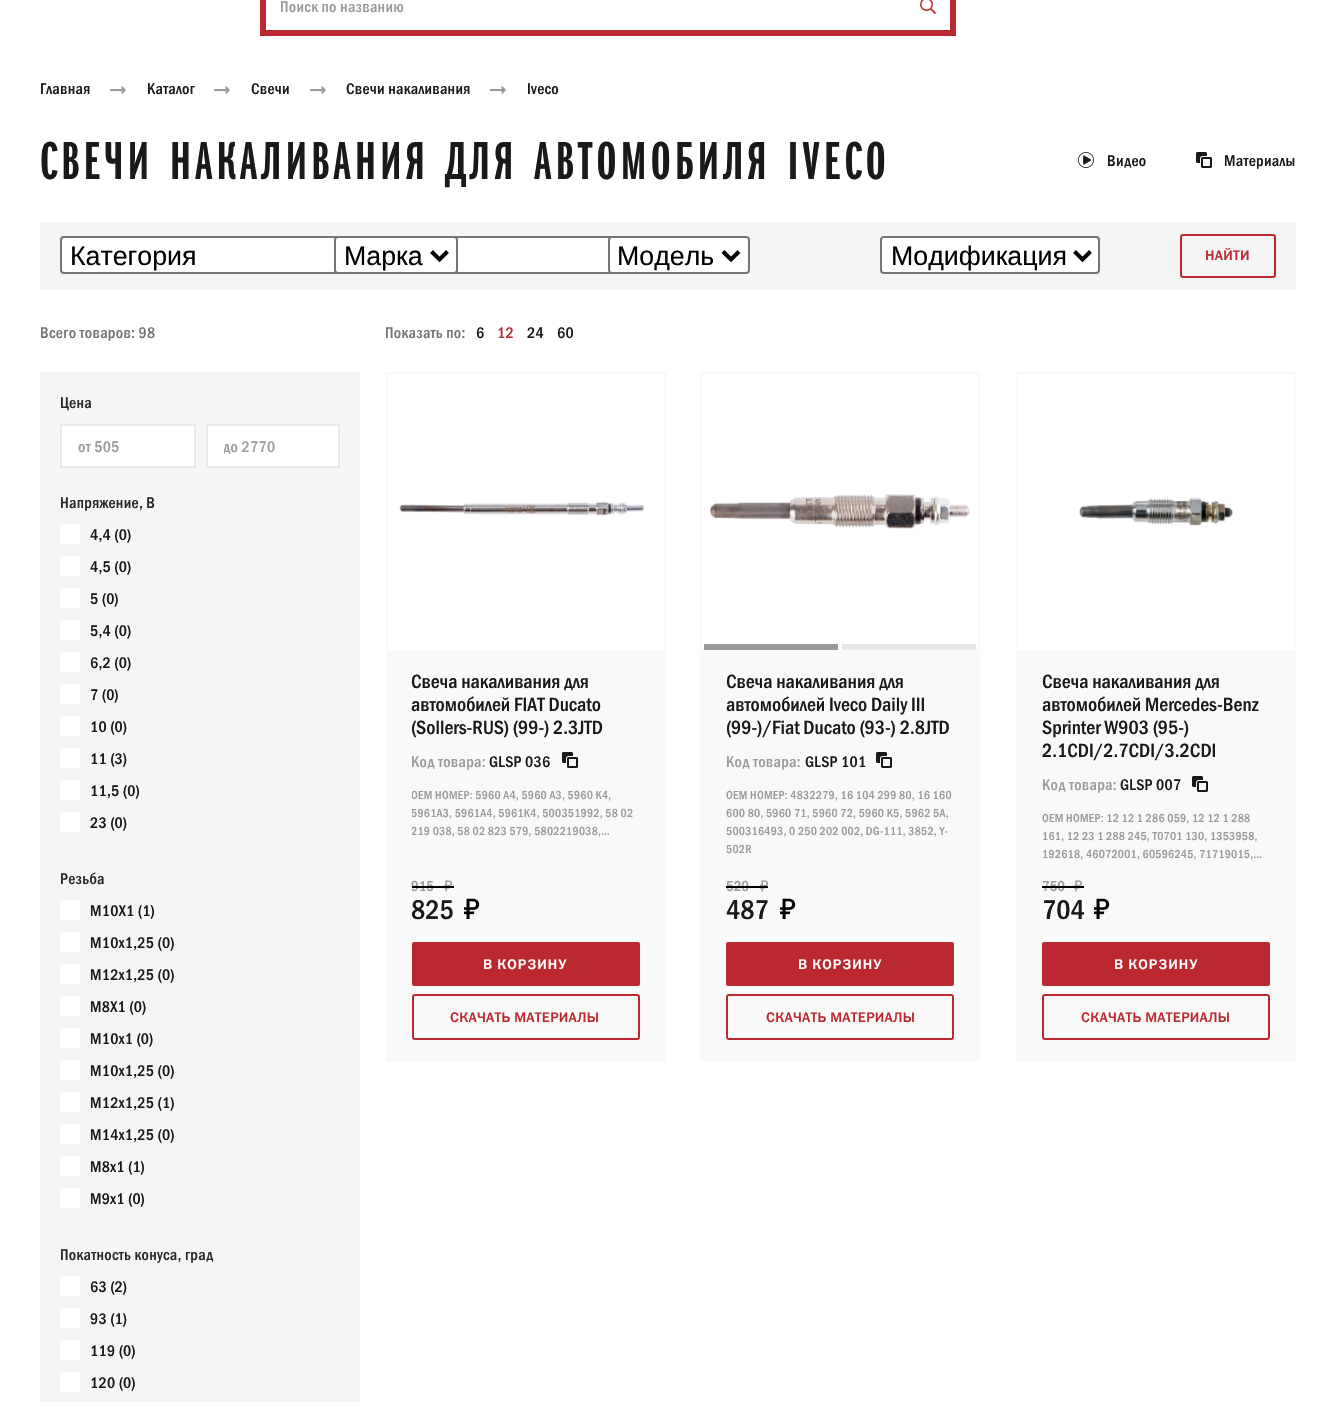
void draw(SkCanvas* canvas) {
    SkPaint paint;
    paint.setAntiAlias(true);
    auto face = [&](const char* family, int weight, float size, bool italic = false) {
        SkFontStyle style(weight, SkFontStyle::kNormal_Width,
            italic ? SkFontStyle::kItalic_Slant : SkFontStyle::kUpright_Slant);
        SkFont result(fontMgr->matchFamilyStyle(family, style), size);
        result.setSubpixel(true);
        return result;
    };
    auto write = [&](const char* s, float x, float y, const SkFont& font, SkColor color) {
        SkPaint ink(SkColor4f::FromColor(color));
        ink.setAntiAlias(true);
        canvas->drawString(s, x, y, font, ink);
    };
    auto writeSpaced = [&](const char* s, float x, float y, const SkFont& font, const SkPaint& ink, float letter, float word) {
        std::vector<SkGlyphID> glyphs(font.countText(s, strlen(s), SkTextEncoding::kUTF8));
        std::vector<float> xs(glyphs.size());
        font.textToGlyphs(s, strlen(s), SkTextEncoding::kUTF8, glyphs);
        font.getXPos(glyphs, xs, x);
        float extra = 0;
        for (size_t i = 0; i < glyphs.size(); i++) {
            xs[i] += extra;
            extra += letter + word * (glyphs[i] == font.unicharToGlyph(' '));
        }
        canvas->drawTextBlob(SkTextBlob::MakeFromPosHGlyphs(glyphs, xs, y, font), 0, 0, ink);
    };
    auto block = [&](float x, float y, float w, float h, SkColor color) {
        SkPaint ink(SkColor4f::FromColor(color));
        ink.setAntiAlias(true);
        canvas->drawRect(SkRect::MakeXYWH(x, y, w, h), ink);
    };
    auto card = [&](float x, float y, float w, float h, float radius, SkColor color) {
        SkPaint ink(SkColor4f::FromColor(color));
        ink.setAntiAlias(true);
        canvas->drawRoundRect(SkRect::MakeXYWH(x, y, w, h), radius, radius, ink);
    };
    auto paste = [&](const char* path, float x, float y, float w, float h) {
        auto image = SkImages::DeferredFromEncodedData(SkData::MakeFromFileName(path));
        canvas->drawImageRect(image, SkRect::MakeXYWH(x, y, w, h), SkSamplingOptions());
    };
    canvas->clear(SK_ColorWHITE);
    paint.setStyle(SkPaint::kStroke_Style);
    paint.setStrokeWidth(6);
    paint.setColor(SkColorSetRGB(187, 40, 48));
    canvas->drawRect(SkRect::MakeXYWH(263, -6, 690, 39), paint);
    auto kFont1 = face("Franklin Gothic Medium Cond", 500, 16);
    paint.setStyle(SkPaint::kFill_Style);
    paint.setColor(SkColorSetRGB(154, 154, 154));
    writeSpaced("Поиск по названию", 280, 12, kFont1, paint, 0.3f, 0);
    paste("pic1.png", 920, 0, 16, 14);
    paint.setColor(SkColorSetRGB(26, 25, 25));
    writeSpaced("Главная", 40, 94, kFont1, paint, 0.3f, 0);
    paste("pic2.png", 110, 86, 16, 8);
    writeSpaced("Каталог", 147, 94, kFont1, paint, 0.3f, 0);
    paste("pic2.png", 214, 86, 16, 8);
    writeSpaced("Свечи", 251, 94, kFont1, paint, 0.3f, 0);
    paste("pic2.png", 310, 86, 16, 8);
    writeSpaced("Свечи накаливания", 346, 94, kFont1, paint, 0.3f, 0);
    paste("pic2.png", 490, 86, 16, 8);
    writeSpaced("Iveco", 527, 94, kFont1, paint, 0.3f, 0);
    auto kFont2 = face("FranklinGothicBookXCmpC", 700, 54);
    writeSpaced("СВЕЧИ НАКАЛИВАНИЯ ДЛЯ АВТОМОБИЛЯ IVECO", 40, 179, kFont2, paint, 4.3f, 0);
    paste("pic3.png", 1078, 152, 16, 16);
    writeSpaced("Видео", 1107, 166, kFont1, paint, 0.3f, 0);
    paste("pic4.png", 1196, 152, 16, 16);
    writeSpaced("Материалы", 1224, 166, kFont1, paint, 0.3f, 0);
    card(40, 222, 1256, 68, 4, SkColorSetRGB(245, 245, 245));
    paint.setColor(SK_ColorWHITE);
    canvas->drawRoundRect(SkRect::MakeXYWH(61, 237, 670, 36), 3, 3, paint);
    paint.setStyle(SkPaint::kStroke_Style);
    paint.setStrokeWidth(2);
    paint.setColor(SkColorSetRGB(118, 118, 118));
    canvas->drawRoundRect(SkRect::MakeXYWH(61, 237, 670, 36), 3, 3, paint);
    auto kFont3 = face("Liberation Sans", 400, 26.75f);
    write("Категория", 70, 265, kFont3, SK_ColorBLACK);
    paint.setStyle(SkPaint::kFill_Style);
    paint.setColor(SK_ColorWHITE);
    canvas->drawRoundRect(SkRect::MakeXYWH(335, 237, 122, 36), 3, 3, paint);
    paint.setStyle(SkPaint::kStroke_Style);
    paint.setColor(SkColorSetRGB(118, 118, 118));
    canvas->drawRoundRect(SkRect::MakeXYWH(335, 237, 122, 36), 3, 3, paint);
    paint.setStrokeWidth(4);
    paint.setColor(SK_ColorBLACK);
    canvas->drawPath(SkPathBuilder().moveTo(431.5f, 251.5f).lineTo(439.5f, 259.5f).lineTo(447.5f, 251.5f).detach(), paint);
    write("Марка", 344, 265, kFont3, SK_ColorBLACK);
    paint.setStyle(SkPaint::kFill_Style);
    paint.setColor(SK_ColorWHITE);
    canvas->drawRoundRect(SkRect::MakeXYWH(609, 237, 140, 36), 3, 3, paint);
    paint.setStyle(SkPaint::kStroke_Style);
    paint.setStrokeWidth(2);
    paint.setColor(SkColorSetRGB(118, 118, 118));
    canvas->drawRoundRect(SkRect::MakeXYWH(609, 237, 140, 36), 3, 3, paint);
    paint.setStrokeWidth(4);
    paint.setColor(SK_ColorBLACK);
    canvas->drawPath(SkPathBuilder().moveTo(723, 251.5f).lineTo(731, 259.5f).lineTo(739, 251.5f).detach(), paint);
    write("Модель", 617, 265, kFont3, SK_ColorBLACK);
    paint.setStyle(SkPaint::kFill_Style);
    paint.setColor(SK_ColorWHITE);
    canvas->drawRoundRect(SkRect::MakeXYWH(881, 237, 218, 36), 3, 3, paint);
    paint.setStyle(SkPaint::kStroke_Style);
    paint.setStrokeWidth(2);
    paint.setColor(SkColorSetRGB(118, 118, 118));
    canvas->drawRoundRect(SkRect::MakeXYWH(881, 237, 218, 36), 3, 3, paint);
    paint.setStrokeWidth(4);
    paint.setColor(SK_ColorBLACK);
    canvas->drawPath(SkPathBuilder().moveTo(1074.5f, 251.5f).lineTo(1082.5f, 259.5f).lineTo(1090.5f, 251.5f).detach(), paint);
    write("Модификация", 891, 265, kFont3, SK_ColorBLACK);
    paint.setStrokeWidth(2);
    paint.setColor(SkColorSetRGB(187, 40, 48));
    canvas->drawRoundRect(SkRect::MakeXYWH(1181, 235, 94, 42), 2, 2, paint);
    auto kFont4 = face("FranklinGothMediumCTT", 500, 14);
    paint.setStyle(SkPaint::kFill_Style);
    writeSpaced("НАЙТИ", 1205, 260, kFont4, paint, 0.25f, 0);
    paint.setColor(SkColorSetRGB(116, 116, 116));
    writeSpaced("Всего товаров: 98", 40, 338, kFont1, paint, 0.3f, 0);
    writeSpaced("Показать по:", 385, 338, kFont1, paint, 0.3f, 0);
    paint.setColor(SkColorSetRGB(26, 25, 25));
    writeSpaced("6", 476, 338, kFont1, paint, 0.3f, 0);
    paint.setColor(SkColorSetRGB(187, 40, 48));
    writeSpaced("12", 497, 338, kFont1, paint, 0.3f, 0);
    paint.setColor(SkColorSetRGB(26, 25, 25));
    writeSpaced("24", 527, 338, kFont1, paint, 0.3f, 0);
    writeSpaced("60", 557, 338, kFont1, paint, 0.3f, 0);
    block(40, 372, 320, 1030, SkColorSetRGB(245, 245, 245));
    paint.setColor(SkColorSetRGB(40, 40, 40));
    writeSpaced("Цена", 60, 408, kFont1, paint, 0.3f, 0);
    paint.setColor(SK_ColorWHITE);
    canvas->drawRect(SkRect::MakeXYWH(61, 425, 134, 42), paint);
    paint.setStyle(SkPaint::kStroke_Style);
    paint.setColor(SkColorSetRGB(233, 233, 233));
    canvas->drawRect(SkRect::MakeXYWH(61, 425, 134, 42), paint);
    paint.setStyle(SkPaint::kFill_Style);
    paint.setColor(SkColorSetRGB(154, 154, 154));
    writeSpaced("от 505", 78, 452, kFont1, paint, 0.3f, 0);
    paint.setColor(SK_ColorWHITE);
    canvas->drawRect(SkRect::MakeXYWH(207, 425, 132, 42), paint);
    paint.setStyle(SkPaint::kStroke_Style);
    paint.setColor(SkColorSetRGB(233, 233, 233));
    canvas->drawRect(SkRect::MakeXYWH(207, 425, 132, 42), paint);
    canvas->save();
    canvas->clipRect(SkRect::MakeXYWH(224, 436, 98, 20));
    paint.setStyle(SkPaint::kFill_Style);
    paint.setColor(SkColorSetRGB(154, 154, 154));
    writeSpaced("до 2770", 223, 452, kFont1, paint, 0.3f, 0);
    canvas->restore();
    paint.setColor(SkColorSetRGB(40, 40, 40));
    writeSpaced("Напряжение, В", 60, 508, kFont1, paint, 0.3f, 0);
    block(60, 524, 20, 20, SK_ColorWHITE);
    paint.setColor(SkColorSetRGB(26, 25, 25));
    writeSpaced("4,4 (0)", 90, 540, kFont1, paint, 0.3f, 0);
    block(60, 556, 20, 20, SK_ColorWHITE);
    writeSpaced("4,5 (0)", 90, 572, kFont1, paint, 0.3f, 0);
    block(60, 588, 20, 20, SK_ColorWHITE);
    writeSpaced("5 (0)", 90, 604, kFont1, paint, 0.3f, 0);
    block(60, 620, 20, 20, SK_ColorWHITE);
    writeSpaced("5,4 (0)", 90, 636, kFont1, paint, 0.3f, 0);
    block(60, 652, 20, 20, SK_ColorWHITE);
    writeSpaced("6,2 (0)", 90, 668, kFont1, paint, 0.3f, 0);
    block(60, 684, 20, 20, SK_ColorWHITE);
    writeSpaced("7 (0)", 90, 700, kFont1, paint, 0.3f, 0);
    block(60, 716, 20, 20, SK_ColorWHITE);
    writeSpaced("10 (0)", 90, 732, kFont1, paint, 0.3f, 0);
    block(60, 748, 20, 20, SK_ColorWHITE);
    writeSpaced("11 (3)", 90, 764, kFont1, paint, 0.3f, 0);
    block(60, 780, 20, 20, SK_ColorWHITE);
    writeSpaced("11,5 (0)", 90, 796, kFont1, paint, 0.3f, 0);
    block(60, 812, 20, 20, SK_ColorWHITE);
    writeSpaced("23 (0)", 90, 828, kFont1, paint, 0.3f, 0);
    paint.setColor(SkColorSetRGB(40, 40, 40));
    writeSpaced("Резьба", 60, 884, kFont1, paint, 0.3f, 0);
    block(60, 900, 20, 20, SK_ColorWHITE);
    paint.setColor(SkColorSetRGB(26, 25, 25));
    writeSpaced("M10X1 (1)", 90, 916, kFont1, paint, 0.3f, 0);
    block(60, 932, 20, 20, SK_ColorWHITE);
    writeSpaced("M10x1,25 (0)", 90, 948, kFont1, paint, 0.3f, 0);
    block(60, 964, 20, 20, SK_ColorWHITE);
    writeSpaced("M12x1,25 (0)", 90, 980, kFont1, paint, 0.3f, 0);
    block(60, 996, 20, 20, SK_ColorWHITE);
    writeSpaced("M8X1 (0)", 90, 1012, kFont1, paint, 0.3f, 0);
    block(60, 1028, 20, 20, SK_ColorWHITE);
    writeSpaced("М10х1 (0)", 90, 1044, kFont1, paint, 0.3f, 0);
    block(60, 1060, 20, 20, SK_ColorWHITE);
    writeSpaced("М10х1,25 (0)", 90, 1076, kFont1, paint, 0.3f, 0);
    block(60, 1092, 20, 20, SK_ColorWHITE);
    writeSpaced("М12х1,25 (1)", 90, 1108, kFont1, paint, 0.3f, 0);
    block(60, 1124, 20, 20, SK_ColorWHITE);
    writeSpaced("М14х1,25 (0)", 90, 1140, kFont1, paint, 0.3f, 0);
    block(60, 1156, 20, 20, SK_ColorWHITE);
    writeSpaced("М8х1 (1)", 90, 1172, kFont1, paint, 0.3f, 0);
    block(60, 1188, 20, 20, SK_ColorWHITE);
    writeSpaced("М9х1 (0)", 90, 1204, kFont1, paint, 0.3f, 0);
    paint.setColor(SkColorSetRGB(40, 40, 40));
    writeSpaced("Покатность конуса, град", 60, 1260, kFont1, paint, 0.3f, 0);
    block(60, 1276, 20, 20, SK_ColorWHITE);
    paint.setColor(SkColorSetRGB(26, 25, 25));
    writeSpaced("63 (2)", 90, 1292, kFont1, paint, 0.3f, 0);
    block(60, 1308, 20, 20, SK_ColorWHITE);
    writeSpaced("93 (1)", 90, 1324, kFont1, paint, 0.3f, 0);
    block(60, 1340, 20, 20, SK_ColorWHITE);
    writeSpaced("119 (0)", 90, 1356, kFont1, paint, 0.3f, 0);
    block(60, 1372, 20, 20, SK_ColorWHITE);
    writeSpaced("120 (0)", 90, 1388, kFont1, paint, 0.3f, 0);
    paint.setStyle(SkPaint::kStroke_Style);
    paint.setColor(SkColorSetRGB(249, 249, 249));
    canvas->drawRect(SkRect::MakeXYWH(387, 373, 278, 688), paint);
    paste("pic5.png", 399, 502, 245, 14);
    block(388, 650, 276, 410, SkColorSetRGB(249, 249, 249));
    auto kFont5 = face("Franklin Gothic Medium Cond", 500, 20);
    write("Свеча накаливания для", 411, 688, kFont5, SkColorSetRGB(26, 25, 25));
    write("автомобилей FIAT Ducato", 411, 711, kFont5, SkColorSetRGB(26, 25, 25));
    write("(Sollers-RUS) (99-) 2.3JTD", 411, 734, kFont5, SkColorSetRGB(26, 25, 25));
    paint.setStyle(SkPaint::kFill_Style);
    paint.setColor(SkColorSetRGB(154, 154, 154));
    writeSpaced("Код товара:", 411, 767, kFont1, paint, 0.3f, 0);
    paint.setColor(SkColorSetRGB(26, 25, 25));
    writeSpaced("GLSP 036", 489, 767, kFont1, paint, 0.3f, 0);
    paste("pic6.png", 562, 752, 16, 16);
    canvas->save();
    canvas->clipRect(SkRect::MakeXYWH(412, 784, 228, 54));
    auto kFont6 = face("Franklin Gothic Medium Cond", 500, 12);
    paint.setColor(SkColorSetRGB(154, 154, 154));
    writeSpaced("OEM НОМЕР: 5960 A4, 5960 A3, 5960 K4,", 411, 799, kFont6, paint, 0.25f, 0);
    writeSpaced("5961A3, 5961A4, 5961K4, 500351992, 58 02", 411, 817, kFont6, paint, 0.25f, 0);
    writeSpaced("219 038, 58 02 823 579, 5802219038,…", 411, 835, kFont6, paint, 0.25f, 0);
    canvas->restore();
    auto kFont7 = face("Franklin Gothic Medium Cond", 500, 15);
    write("915", 411, 891, kFont7, SkColorSetRGB(154, 154, 154));
    paste("pic7.png", 444, 880, 9, 12);
    block(412, 886, 42, 2, SK_ColorBLACK);
    auto kFont8 = face("Franklin Gothic Medium Cond", 500, 28);
    write("825", 411, 919, kFont8, SkColorSetRGB(26, 25, 25));
    paste("pic8.png", 464, 898, 16, 21);
    card(412, 942, 228, 44, 2, SkColorSetRGB(187, 40, 48));
    paint.setColor(SK_ColorWHITE);
    writeSpaced("В КОРЗИНУ", 483, 969, kFont4, paint, 1, 0);
    paint.setStyle(SkPaint::kStroke_Style);
    paint.setColor(SkColorSetRGB(187, 40, 48));
    canvas->drawRoundRect(SkRect::MakeXYWH(413, 995, 226, 44), 2, 2, paint);
    paint.setStyle(SkPaint::kFill_Style);
    writeSpaced("СКАЧАТЬ МАТЕРИАЛЫ", 450, 1022, kFont4, paint, 0.25f, 0);
    paint.setStyle(SkPaint::kStroke_Style);
    paint.setColor(SkColorSetRGB(249, 249, 249));
    canvas->drawRect(SkRect::MakeXYWH(701, 373, 278, 688), paint);
    paste("pic9.png", 710, 494, 260, 35);
    block(704, 644, 134, 6, SkColorSetRGB(153, 153, 153));
    block(842, 644, 134, 6, SkColorSetRGB(230, 230, 230));
    block(702, 650, 276, 410, SkColorSetRGB(249, 249, 249));
    write("Свеча накаливания для", 726, 688, kFont5, SkColorSetRGB(26, 25, 25));
    write("автомобилей Iveco Daily III", 726, 711, kFont5, SkColorSetRGB(26, 25, 25));
    write("(99-)/Fiat Ducato (93-) 2.8JTD", 726, 734, kFont5, SkColorSetRGB(26, 25, 25));
    paint.setStyle(SkPaint::kFill_Style);
    paint.setColor(SkColorSetRGB(154, 154, 154));
    writeSpaced("Код товара:", 726, 767, kFont1, paint, 0.3f, 0);
    paint.setColor(SkColorSetRGB(26, 25, 25));
    writeSpaced("GLSP 101", 805, 767, kFont1, paint, 0.3f, 0);
    paste("pic6.png", 876, 752, 16, 16);
    paint.setColor(SkColorSetRGB(154, 154, 154));
    writeSpaced("OEM НОМЕР: 4832279, 16 104 299 80, 16 160", 726, 799, kFont6, paint, 0.25f, 0);
    writeSpaced("600 80, 5960 71, 5960 72, 5960 K5, 5962 5A,", 726, 817, kFont6, paint, 0.25f, 0);
    writeSpaced("500316493, 0 250 202 002, DG-111, 3852, Y-", 726, 835, kFont6, paint, 0.25f, 0);
    writeSpaced("502R", 726, 853, kFont6, paint, 0.25f, 0);
    write("520", 726, 891, kFont7, SkColorSetRGB(154, 154, 154));
    paste("pic10.png", 760, 880, 8, 12);
    block(726, 886, 42, 2, SK_ColorBLACK);
    write("487", 726, 919, kFont8, SkColorSetRGB(26, 25, 25));
    paste("pic8.png", 780, 898, 16, 21);
    card(726, 942, 228, 44, 2, SkColorSetRGB(187, 40, 48));
    paint.setColor(SK_ColorWHITE);
    writeSpaced("В КОРЗИНУ", 798, 969, kFont4, paint, 1, 0);
    paint.setStyle(SkPaint::kStroke_Style);
    paint.setColor(SkColorSetRGB(187, 40, 48));
    canvas->drawRoundRect(SkRect::MakeXYWH(727, 995, 226, 44), 2, 2, paint);
    paint.setStyle(SkPaint::kFill_Style);
    writeSpaced("СКАЧАТЬ МАТЕРИАЛЫ", 766, 1022, kFont4, paint, 0.25f, 0);
    paint.setStyle(SkPaint::kStroke_Style);
    paint.setColor(SkColorSetRGB(249, 249, 249));
    canvas->drawRect(SkRect::MakeXYWH(1017, 373, 278, 688), paint);
    paste("pic11.png", 1079, 497, 154, 29);
    block(1018, 650, 276, 410, SkColorSetRGB(249, 249, 249));
    write("Свеча накаливания для", 1042, 688, kFont5, SkColorSetRGB(26, 25, 25));
    write("автомобилей Mercedes-Benz", 1042, 711, kFont5, SkColorSetRGB(26, 25, 25));
    write("Sprinter W903 (95-)", 1042, 734, kFont5, SkColorSetRGB(26, 25, 25));
    write("2.1CDI/2.7CDI/3.2CDI", 1042, 757, kFont5, SkColorSetRGB(26, 25, 25));
    paint.setStyle(SkPaint::kFill_Style);
    paint.setColor(SkColorSetRGB(154, 154, 154));
    writeSpaced("Код товара:", 1042, 790, kFont1, paint, 0.3f, 0);
    paint.setColor(SkColorSetRGB(26, 25, 25));
    writeSpaced("GLSP 007", 1120, 790, kFont1, paint, 0.3f, 0);
    paste("pic6.png", 1192, 776, 16, 16);
    paint.setColor(SkColorSetRGB(154, 154, 154));
    writeSpaced("OEM НОМЕР: 12 12 1 286 059, 12 12 1 288", 1042, 822, kFont6, paint, 0.25f, 0);
    writeSpaced("161, 12 23 1 288 245, T0701 130, 1353958,", 1042, 840, kFont6, paint, 0.25f, 0);
    writeSpaced("192618, 46072001, 60596245, 71719015,…", 1042, 858, kFont6, paint, 0.25f, 0);
    write("750", 1042, 891, kFont7, SkColorSetRGB(154, 154, 154));
    paste("pic7.png", 1074, 880, 9, 12);
    block(1042, 886, 42, 2, SK_ColorBLACK);
    write("704", 1042, 919, kFont8, SkColorSetRGB(26, 25, 25));
    paste("pic8.png", 1094, 898, 16, 21);
    card(1042, 942, 228, 44, 2, SkColorSetRGB(187, 40, 48));
    paint.setColor(SK_ColorWHITE);
    writeSpaced("В КОРЗИНУ", 1114, 969, kFont4, paint, 1, 0);
    paint.setStyle(SkPaint::kStroke_Style);
    paint.setColor(SkColorSetRGB(187, 40, 48));
    canvas->drawRoundRect(SkRect::MakeXYWH(1043, 995, 226, 44), 2, 2, paint);
    paint.setStyle(SkPaint::kFill_Style);
    writeSpaced("СКАЧАТЬ МАТЕРИАЛЫ", 1081, 1022, kFont4, paint, 0.25f, 0);
}
